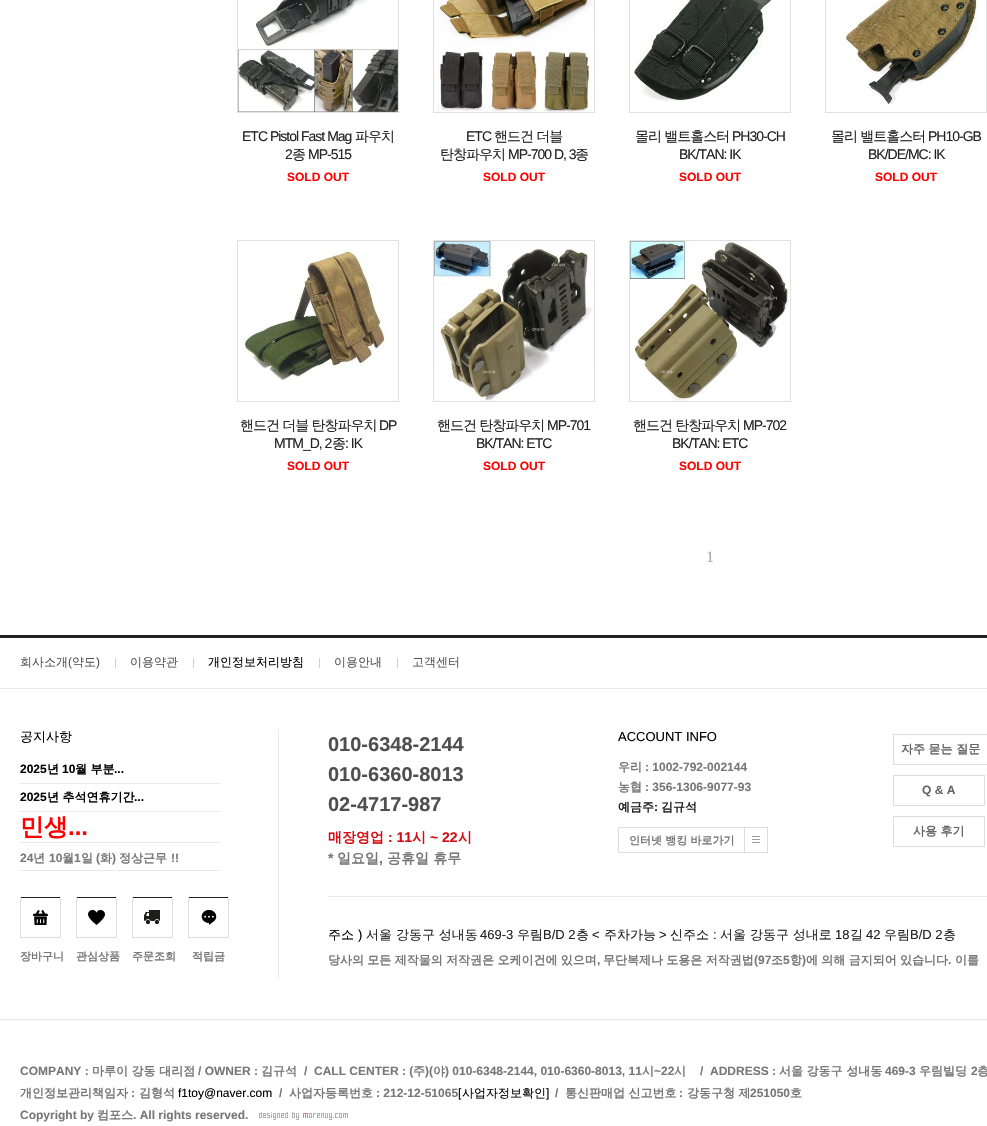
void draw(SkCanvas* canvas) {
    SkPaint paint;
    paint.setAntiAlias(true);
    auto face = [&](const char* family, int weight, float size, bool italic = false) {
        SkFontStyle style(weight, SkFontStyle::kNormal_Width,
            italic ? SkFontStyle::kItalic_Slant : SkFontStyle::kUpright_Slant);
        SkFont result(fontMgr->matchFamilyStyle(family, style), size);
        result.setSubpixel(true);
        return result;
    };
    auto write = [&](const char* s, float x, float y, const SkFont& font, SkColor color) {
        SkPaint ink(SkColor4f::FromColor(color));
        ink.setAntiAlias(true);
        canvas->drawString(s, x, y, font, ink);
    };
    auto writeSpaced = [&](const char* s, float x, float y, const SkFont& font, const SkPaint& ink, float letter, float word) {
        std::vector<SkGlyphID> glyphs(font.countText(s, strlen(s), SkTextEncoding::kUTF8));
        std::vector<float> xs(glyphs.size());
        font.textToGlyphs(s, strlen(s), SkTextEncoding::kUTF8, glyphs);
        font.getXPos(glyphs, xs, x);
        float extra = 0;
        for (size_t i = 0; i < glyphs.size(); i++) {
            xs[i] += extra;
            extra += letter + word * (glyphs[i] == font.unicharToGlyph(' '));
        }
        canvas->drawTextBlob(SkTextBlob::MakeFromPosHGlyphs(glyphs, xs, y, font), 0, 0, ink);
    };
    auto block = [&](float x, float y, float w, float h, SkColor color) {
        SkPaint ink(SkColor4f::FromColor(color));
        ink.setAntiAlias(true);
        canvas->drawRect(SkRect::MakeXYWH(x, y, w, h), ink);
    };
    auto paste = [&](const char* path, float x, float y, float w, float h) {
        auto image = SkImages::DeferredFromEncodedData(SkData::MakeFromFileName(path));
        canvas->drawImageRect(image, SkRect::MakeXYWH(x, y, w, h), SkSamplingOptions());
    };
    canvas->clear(SK_ColorWHITE);
    paint.setStyle(SkPaint::kStroke_Style);
    paint.setStrokeWidth(1);
    paint.setColor(SkColorSetRGB(224, 224, 224));
    canvas->drawRect(SkRect::MakeXYWH(237.5f, -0.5f, 161, 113), paint);
    paste("pic1.png", 238, 0, 160, 112);
    auto kFont1 = face("Liberation Sans", 400, 14);
    paint.setStyle(SkPaint::kFill_Style);
    paint.setColor(SkColorSetRGB(34, 34, 34));
    writeSpaced("ETC Pistol Fast Mag", 242, 141, kFont1, paint, -1, 0);
    auto kFont2 = face("WenQuanYi Zen Hei", 500, 14);
    writeSpaced("파우치", 355, 141, kFont2, paint, -1, 0);
    writeSpaced("2", 285, 159, kFont1, paint, -1, 0);
    writeSpaced("종", 292, 159, kFont2, paint, -1, 0);
    writeSpaced("MP-515", 308, 159, kFont1, paint, -1, 0);
    auto kFont3 = face("Liberation Sans", 700, 12);
    write("SOLD OUT", 287, 181, kFont3, SkColorSetRGB(255, 0, 0));
    paint.setStyle(SkPaint::kStroke_Style);
    paint.setColor(SkColorSetRGB(224, 224, 224));
    canvas->drawRect(SkRect::MakeXYWH(433.5f, -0.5f, 161, 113), paint);
    paste("pic2.png", 436, 0, 158, 112);
    paint.setStyle(SkPaint::kFill_Style);
    paint.setColor(SkColorSetRGB(34, 34, 34));
    writeSpaced("ETC", 466, 141, kFont1, paint, -1, 0);
    writeSpaced("핸드건 더블", 494, 141, kFont2, paint, -1, 0);
    writeSpaced("탄창파우치", 440, 159, kFont2, paint, -1, 0);
    writeSpaced("MP-700 D, 3", 508, 159, kFont1, paint, -1, 0);
    writeSpaced("종", 575, 159, kFont2, paint, -1, 0);
    write("SOLD OUT", 483, 181, kFont3, SkColorSetRGB(255, 0, 0));
    paint.setStyle(SkPaint::kStroke_Style);
    paint.setColor(SkColorSetRGB(224, 224, 224));
    canvas->drawRect(SkRect::MakeXYWH(629.5f, -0.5f, 161, 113), paint);
    paste("pic3.png", 634, 0, 139, 101);
    paint.setStyle(SkPaint::kFill_Style);
    paint.setColor(SkColorSetRGB(34, 34, 34));
    writeSpaced("몰리 밸트홀스터", 635, 141, kFont2, paint, -1, 0);
    writeSpaced("PH30-CH", 732, 141, kFont1, paint, -1, 0);
    writeSpaced("BK/TAN: IK", 679, 159, kFont1, paint, -1, 0);
    write("SOLD OUT", 679, 181, kFont3, SkColorSetRGB(255, 0, 0));
    paint.setStyle(SkPaint::kStroke_Style);
    paint.setColor(SkColorSetRGB(224, 224, 224));
    canvas->drawRect(SkRect::MakeXYWH(825.5f, -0.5f, 161, 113), paint);
    paste("pic4.png", 844, 0, 135, 105);
    paint.setStyle(SkPaint::kFill_Style);
    paint.setColor(SkColorSetRGB(34, 34, 34));
    writeSpaced("몰리 밸트홀스터", 831, 141, kFont2, paint, -1, 0);
    writeSpaced("PH10-GB", 928, 141, kFont1, paint, -1, 0);
    writeSpaced("BK/DE/MC: IK", 868, 159, kFont1, paint, -1, 0);
    write("SOLD OUT", 875, 181, kFont3, SkColorSetRGB(255, 0, 0));
    paint.setStyle(SkPaint::kStroke_Style);
    paint.setColor(SkColorSetRGB(224, 224, 224));
    canvas->drawRect(SkRect::MakeXYWH(237.5f, 240.5f, 161, 161), paint);
    paste("pic5.png", 243, 249, 143, 133);
    paint.setStyle(SkPaint::kFill_Style);
    paint.setColor(SkColorSetRGB(34, 34, 34));
    writeSpaced("핸드건 더블 탄창파우치", 240, 430, kFont2, paint, -1, 0);
    writeSpaced("DP", 379, 430, kFont1, paint, -1, 0);
    writeSpaced("MTM_D, 2", 274, 448, kFont1, paint, -1, 0);
    writeSpaced("종", 332, 448, kFont2, paint, -1, 0);
    writeSpaced(": IK", 345, 448, kFont1, paint, -1, 0);
    write("SOLD OUT", 287, 470, kFont3, SkColorSetRGB(255, 0, 0));
    paint.setStyle(SkPaint::kStroke_Style);
    paint.setColor(SkColorSetRGB(224, 224, 224));
    canvas->drawRect(SkRect::MakeXYWH(433.5f, 240.5f, 161, 161), paint);
    paste("pic6.png", 434, 241, 160, 160);
    paint.setStyle(SkPaint::kFill_Style);
    paint.setColor(SkColorSetRGB(34, 34, 34));
    writeSpaced("핸드건 탄창파우치", 437, 430, kFont2, paint, -1, 0);
    writeSpaced("MP-701", 547, 430, kFont1, paint, -1, 0);
    writeSpaced("BK/TAN: ETC", 476, 448, kFont1, paint, -1, 0);
    write("SOLD OUT", 483, 470, kFont3, SkColorSetRGB(255, 0, 0));
    paint.setStyle(SkPaint::kStroke_Style);
    paint.setColor(SkColorSetRGB(224, 224, 224));
    canvas->drawRect(SkRect::MakeXYWH(629.5f, 240.5f, 161, 161), paint);
    paste("pic7.png", 630, 241, 159, 160);
    paint.setStyle(SkPaint::kFill_Style);
    paint.setColor(SkColorSetRGB(34, 34, 34));
    writeSpaced("핸드건 탄창파우치", 633, 430, kFont2, paint, -1, 0);
    writeSpaced("MP-702", 743, 430, kFont1, paint, -1, 0);
    writeSpaced("BK/TAN: ETC", 672, 448, kFont1, paint, -1, 0);
    write("SOLD OUT", 679, 470, kFont3, SkColorSetRGB(255, 0, 0));
    auto kFont4 = face("Liberation Serif", 400, 16);
    write("1", 706, 562, kFont4, SkColorSetRGB(166, 166, 166));
    block(0, 635, 987, 3, SkColorSetRGB(34, 34, 34));
    block(0, 688, 987, 1, SkColorSetRGB(233, 233, 233));
    auto kFont5 = face("WenQuanYi Zen Hei", 500, 12);
    write("회사소개", 20, 666, kFont5, SkColorSetRGB(85, 85, 85));
    auto kFont6 = face("Liberation Sans", 400, 12);
    write("(", 68, 666, kFont6, SkColorSetRGB(85, 85, 85));
    write("약도", 72, 666, kFont5, SkColorSetRGB(85, 85, 85));
    write(")", 96, 666, kFont6, SkColorSetRGB(85, 85, 85));
    paste("pic8.png", 115, 658, 1, 10);
    write("이용약관", 130, 666, kFont5, SkColorSetRGB(85, 85, 85));
    paste("pic8.png", 193, 658, 1, 10);
    write("개인정보처리방침", 208, 666, kFont5, SK_ColorBLACK);
    paste("pic8.png", 319, 658, 1, 10);
    write("이용안내", 334, 666, kFont5, SkColorSetRGB(85, 85, 85));
    paste("pic8.png", 397, 658, 1, 10);
    write("고객센터", 412, 666, kFont5, SkColorSetRGB(85, 85, 85));
    block(0, 1019, 987, 1, SkColorSetRGB(233, 233, 233));
    block(278, 729, 1, 250, SkColorSetRGB(233, 233, 233));
    auto kFont7 = face("WenQuanYi Zen Hei", 500, 13);
    write("공지사항", 20, 741, kFont7, SK_ColorBLACK);
    block(20, 783, 200, 1, SkColorSetRGB(234, 234, 234));
    write("2025", 20, 773, kFont3, SK_ColorBLACK);
    auto kFont8 = face("WenQuanYi Zen Hei", 700, 12);
    write("년", 47, 773, kFont8, SK_ColorBLACK);
    write("10", 62, 773, kFont3, SK_ColorBLACK);
    write("월 부분", 75, 773, kFont8, SK_ColorBLACK);
    write("...", 114, 773, kFont3, SK_ColorBLACK);
    block(20, 811, 200, 1, SkColorSetRGB(234, 234, 234));
    write("2025", 20, 801, kFont3, SK_ColorBLACK);
    write("년 추석연휴기간", 47, 801, kFont8, SK_ColorBLACK);
    write("...", 134, 801, kFont3, SK_ColorBLACK);
    block(20, 842, 200, 1, SkColorSetRGB(234, 234, 234));
    auto kFont9 = face("WenQuanYi Zen Hei", 700, 24);
    write("민생", 20, 835, kFont9, SkColorSetRGB(255, 0, 0));
    auto kFont10 = face("Liberation Sans", 700, 24);
    write("...", 68, 835, kFont10, SkColorSetRGB(255, 0, 0));
    block(20, 870, 200, 1, SkColorSetRGB(234, 234, 234));
    write("24", 20, 862, kFont3, SkColorSetRGB(119, 119, 119));
    write("년", 33, 862, kFont8, SkColorSetRGB(119, 119, 119));
    write("10", 49, 862, kFont3, SkColorSetRGB(119, 119, 119));
    write("월", 62, 862, kFont8, SkColorSetRGB(119, 119, 119));
    write("1", 74, 862, kFont3, SkColorSetRGB(119, 119, 119));
    write("일", 81, 862, kFont8, SkColorSetRGB(119, 119, 119));
    write("(", 96, 862, kFont3, SkColorSetRGB(119, 119, 119));
    write("화", 100, 862, kFont8, SkColorSetRGB(119, 119, 119));
    write(")", 112, 862, kFont3, SkColorSetRGB(119, 119, 119));
    write("정상근무", 119, 862, kFont8, SkColorSetRGB(119, 119, 119));
    write("!!", 171, 862, kFont3, SkColorSetRGB(119, 119, 119));
    block(20, 897, 41, 1, SkColorSetRGB(34, 34, 34));
    block(60, 897, 1, 41, SkColorSetRGB(222, 222, 222));
    block(20, 937, 41, 1, SkColorSetRGB(222, 222, 222));
    block(20, 897, 1, 41, SkColorSetRGB(222, 222, 222));
    paste("pic9.png", 33, 910, 15, 15);
    auto kFont11 = face("WenQuanYi Zen Hei", 700, 11);
    write("장바구니", 20, 960, kFont11, SkColorSetRGB(119, 119, 119));
    block(76, 897, 41, 1, SkColorSetRGB(34, 34, 34));
    block(116, 897, 1, 41, SkColorSetRGB(222, 222, 222));
    block(76, 937, 41, 1, SkColorSetRGB(222, 222, 222));
    block(76, 897, 1, 41, SkColorSetRGB(222, 222, 222));
    paste("pic10.png", 88, 910, 17, 15);
    write("관심상품", 76, 960, kFont11, SkColorSetRGB(119, 119, 119));
    block(132, 897, 41, 1, SkColorSetRGB(34, 34, 34));
    block(172, 897, 1, 41, SkColorSetRGB(222, 222, 222));
    block(132, 937, 41, 1, SkColorSetRGB(222, 222, 222));
    block(132, 897, 1, 41, SkColorSetRGB(222, 222, 222));
    paste("pic11.png", 144, 910, 16, 14);
    write("주문조회", 132, 960, kFont11, SkColorSetRGB(119, 119, 119));
    block(188, 897, 41, 1, SkColorSetRGB(34, 34, 34));
    block(228, 897, 1, 41, SkColorSetRGB(222, 222, 222));
    block(188, 937, 41, 1, SkColorSetRGB(222, 222, 222));
    block(188, 897, 1, 41, SkColorSetRGB(222, 222, 222));
    paste("pic12.png", 201, 910, 16, 15);
    write("적립금", 192, 960, kFont11, SkColorSetRGB(119, 119, 119));
    auto kFont12 = face("Liberation Sans", 700, 20);
    write("010-6348-2144", 328, 751, kFont12, SkColorSetRGB(79, 79, 79));
    write("010-6360-8013", 328, 781, kFont12, SkColorSetRGB(79, 79, 79));
    write("02-4717-987", 328, 811, kFont12, SkColorSetRGB(79, 79, 79));
    auto kFont13 = face("WenQuanYi Zen Hei", 700, 14);
    write("매장영업", 328, 842, kFont13, SkColorSetRGB(215, 12, 18));
    auto kFont14 = face("Liberation Sans", 700, 14);
    write(": 11", 388, 842, kFont14, SkColorSetRGB(215, 12, 18));
    write("시", 412, 842, kFont13, SkColorSetRGB(215, 12, 18));
    write("~ 22", 430, 842, kFont14, SkColorSetRGB(215, 12, 18));
    write("시", 458, 842, kFont13, SkColorSetRGB(215, 12, 18));
    write("*", 328, 863, kFont14, SkColorSetRGB(119, 119, 119));
    write("일요일", 337, 863, kFont13, SkColorSetRGB(119, 119, 119));
    write("공휴일 휴무", 387, 863, kFont13, SkColorSetRGB(119, 119, 119));
    write(",", 379, 863, kFont14, SkColorSetRGB(119, 119, 119));
    auto kFont15 = face("Liberation Sans", 400, 13);
    write("ACCOUNT INFO", 618, 741, kFont15, SK_ColorBLACK);
    write("우리", 618, 771, kFont8, SkColorSetRGB(119, 119, 119));
    write(": 1002-792-002144", 645, 771, kFont3, SkColorSetRGB(119, 119, 119));
    write("농협", 618, 791, kFont8, SkColorSetRGB(119, 119, 119));
    write(": 356-1306-9077-93", 645, 791, kFont3, SkColorSetRGB(119, 119, 119));
    write("예금주", 618, 811, kFont8, SkColorSetRGB(34, 34, 34));
    write(":", 654, 811, kFont3, SkColorSetRGB(34, 34, 34));
    write("김규석", 661, 811, kFont8, SkColorSetRGB(34, 34, 34));
    block(618, 827, 126, 1, SkColorSetRGB(222, 222, 222));
    block(618, 852, 126, 1, SkColorSetRGB(222, 222, 222));
    block(618, 827, 1, 26, SkColorSetRGB(222, 222, 222));
    write("인터넷 뱅킹 바로가기", 629, 844, kFont11, SkColorSetRGB(119, 119, 119));
    paste("pic13.png", 744, 827, 24, 26);
    paint.setStyle(SkPaint::kStroke_Style);
    paint.setColor(SkColorSetRGB(222, 222, 222));
    canvas->drawRect(SkRect::MakeXYWH(893.5f, 734.5f, 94, 30), paint);
    write("자주 묻는 질문", 901, 753, kFont8, SkColorSetRGB(102, 102, 102));
    canvas->drawRect(SkRect::MakeXYWH(893.5f, 775.5f, 91, 30), paint);
    write("Q & A", 922, 794, kFont3, SkColorSetRGB(102, 102, 102));
    canvas->drawRect(SkRect::MakeXYWH(893.5f, 816.5f, 91, 30), paint);
    write("사용 후기", 913, 835, kFont8, SkColorSetRGB(102, 102, 102));
    block(328, 896, 659, 1, SkColorSetRGB(233, 233, 233));
    write("주소", 328, 939, kFont7, SK_ColorBLACK);
    write(")", 358, 939, kFont15, SK_ColorBLACK);
    write("서울 강동구 성내동", 366, 939, kFont7, SkColorSetRGB(34, 34, 34));
    write("469-3", 480, 939, kFont15, SkColorSetRGB(34, 34, 34));
    write("우림", 517, 939, kFont7, SkColorSetRGB(34, 34, 34));
    write("B/D 2", 543, 939, kFont15, SkColorSetRGB(34, 34, 34));
    write("층", 576, 939, kFont7, SkColorSetRGB(34, 34, 34));
    write("<", 592, 939, kFont15, SkColorSetRGB(34, 34, 34));
    write("주차가능", 604, 939, kFont7, SkColorSetRGB(34, 34, 34));
    write(">", 659, 939, kFont15, SkColorSetRGB(34, 34, 34));
    write("신주소", 670, 939, kFont7, SkColorSetRGB(34, 34, 34));
    write(":", 713, 939, kFont15, SkColorSetRGB(34, 34, 34));
    write("서울 강동구 성내로", 720, 939, kFont7, SkColorSetRGB(34, 34, 34));
    write("18", 835, 939, kFont15, SkColorSetRGB(34, 34, 34));
    write("길", 850, 939, kFont7, SkColorSetRGB(34, 34, 34));
    write("42", 866, 939, kFont15, SkColorSetRGB(34, 34, 34));
    write("우림", 884, 939, kFont7, SkColorSetRGB(34, 34, 34));
    write("B/D 2", 910, 939, kFont15, SkColorSetRGB(34, 34, 34));
    write("층", 943, 939, kFont7, SkColorSetRGB(34, 34, 34));
    paint.setStyle(SkPaint::kFill_Style);
    paint.setColor(SkColorSetRGB(119, 119, 119));
    writeSpaced("당사의 모든 제작물의 저작권은 오케이건에 있으며", 328, 964, kFont8, paint, 0, -0.25f);
    write(",", 597, 964, kFont3, SkColorSetRGB(119, 119, 119));
    writeSpaced("무단복제나 도용은 저작권법", 603, 964, kFont8, paint, 0, -0.25f);
    write("(97", 754, 964, kFont3, SkColorSetRGB(119, 119, 119));
    write("조", 771, 964, kFont8, SkColorSetRGB(119, 119, 119));
    write("5", 783, 964, kFont3, SkColorSetRGB(119, 119, 119));
    write("항", 790, 964, kFont8, SkColorSetRGB(119, 119, 119));
    write(")", 802, 964, kFont3, SkColorSetRGB(119, 119, 119));
    writeSpaced("에 의해 금지되어 있습니다", 806, 964, kFont8, paint, 0, -0.25f);
    write(".", 948, 964, kFont3, SkColorSetRGB(119, 119, 119));
    writeSpaced("이를", 955, 964, kFont8, paint, 0, -0.25f);
    write("COMPANY :", 20, 1075, kFont3, SkColorSetRGB(119, 119, 119));
    write("마루이 강동 대리점", 92, 1075, kFont8, SkColorSetRGB(119, 119, 119));
    write("/ OWNER :", 198, 1075, kFont3, SkColorSetRGB(119, 119, 119));
    write("김규석", 261, 1075, kFont8, SkColorSetRGB(119, 119, 119));
    write("/  CALL CENTER : (", 304, 1075, kFont3, SkColorSetRGB(119, 119, 119));
    write("주", 413, 1075, kFont8, SkColorSetRGB(119, 119, 119));
    write(")(", 425, 1075, kFont3, SkColorSetRGB(119, 119, 119));
    write("야", 433, 1075, kFont8, SkColorSetRGB(119, 119, 119));
    write(") 010-6348-2144, 010-6360-8013, 11", 445, 1075, kFont3, SkColorSetRGB(119, 119, 119));
    write("시", 642, 1075, kFont8, SkColorSetRGB(119, 119, 119));
    write("~22", 654, 1075, kFont3, SkColorSetRGB(119, 119, 119));
    write("시", 674, 1075, kFont8, SkColorSetRGB(119, 119, 119));
    write("/  ADDRESS :", 700, 1075, kFont3, SkColorSetRGB(119, 119, 119));
    write("서울 강동구 성내동", 779, 1075, kFont8, SkColorSetRGB(119, 119, 119));
    write("469-3", 885, 1075, kFont3, SkColorSetRGB(119, 119, 119));
    write("우림빌딩", 919, 1075, kFont8, SkColorSetRGB(119, 119, 119));
    write("2", 971, 1075, kFont3, SkColorSetRGB(119, 119, 119));
    write("층", 977, 1075, kFont8, SkColorSetRGB(119, 119, 119));
    write("개인정보관리책임자", 20, 1097, kFont8, SkColorSetRGB(119, 119, 119));
    write(":", 131, 1097, kFont3, SkColorSetRGB(119, 119, 119));
    write("김형석", 139, 1097, kFont8, SkColorSetRGB(119, 119, 119));
    write("f1toy@naver.com", 178, 1097, kFont6, SK_ColorBLACK);
    write("/", 279, 1097, kFont3, SkColorSetRGB(119, 119, 119));
    write("사업자등록번호", 289, 1097, kFont8, SkColorSetRGB(119, 119, 119));
    write(": 212-12-51065", 376, 1097, kFont3, SkColorSetRGB(119, 119, 119));
    write("[", 458, 1097, kFont6, SK_ColorBLACK);
    write("사업자정보확인", 462, 1097, kFont5, SK_ColorBLACK);
    write("]", 546, 1097, kFont6, SK_ColorBLACK);
    write("/", 555, 1097, kFont3, SkColorSetRGB(119, 119, 119));
    write("통신판매업 신고번호", 565, 1097, kFont8, SkColorSetRGB(119, 119, 119));
    write(":", 679, 1097, kFont3, SkColorSetRGB(119, 119, 119));
    write("강동구청 제", 687, 1097, kFont8, SkColorSetRGB(119, 119, 119));
    write("251050", 750, 1097, kFont3, SkColorSetRGB(119, 119, 119));
    write("호", 790, 1097, kFont8, SkColorSetRGB(119, 119, 119));
    write("Copyright by", 20, 1119, kFont3, SkColorSetRGB(119, 119, 119));
    write("컴포스", 97, 1119, kFont8, SkColorSetRGB(119, 119, 119));
    write(". All rights reserved.", 133, 1119, kFont3, SkColorSetRGB(119, 119, 119));
    paste("pic14.png", 259, 1112, 89, 8);
}
